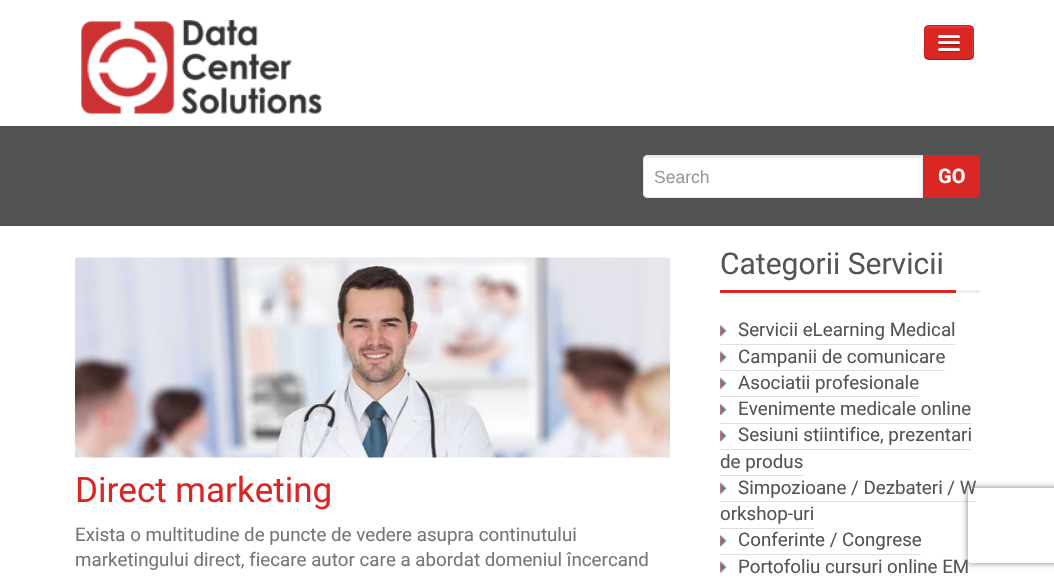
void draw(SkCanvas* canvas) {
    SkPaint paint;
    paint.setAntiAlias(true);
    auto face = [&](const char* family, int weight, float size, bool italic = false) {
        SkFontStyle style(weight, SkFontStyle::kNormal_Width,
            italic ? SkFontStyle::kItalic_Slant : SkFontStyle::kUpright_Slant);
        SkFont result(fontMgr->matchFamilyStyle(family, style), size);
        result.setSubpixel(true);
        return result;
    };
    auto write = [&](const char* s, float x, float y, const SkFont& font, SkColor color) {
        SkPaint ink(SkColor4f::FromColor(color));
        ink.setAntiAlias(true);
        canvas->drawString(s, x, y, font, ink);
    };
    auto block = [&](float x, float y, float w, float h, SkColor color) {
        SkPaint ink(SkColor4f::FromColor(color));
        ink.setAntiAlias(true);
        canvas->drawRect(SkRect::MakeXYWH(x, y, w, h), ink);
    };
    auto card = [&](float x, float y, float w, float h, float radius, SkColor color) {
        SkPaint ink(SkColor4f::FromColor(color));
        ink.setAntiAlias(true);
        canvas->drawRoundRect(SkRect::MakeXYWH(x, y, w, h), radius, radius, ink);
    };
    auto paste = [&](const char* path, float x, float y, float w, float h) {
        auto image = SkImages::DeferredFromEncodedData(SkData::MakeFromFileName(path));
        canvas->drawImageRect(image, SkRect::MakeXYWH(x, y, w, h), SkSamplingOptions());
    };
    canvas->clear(SK_ColorWHITE);
    paste("pic1.png", 81, 20, 241, 94);
    card(924, 25, 50, 35, 5, SkColorSetRGB(219, 39, 35));
    canvas->save();
    canvas->clipPath(SkPathBuilder().moveTo(929, 25).lineTo(969, 25).cubicTo(972, 25, 974, 27, 974, 30).lineTo(974, 55).cubicTo(974, 58, 972, 60, 969, 60).lineTo(929, 60).cubicTo(926, 60, 924, 58, 924, 55).lineTo(924, 30).cubicTo(924, 27, 926, 25, 929, 25).close().detach(), true);
    block(924, 26, 50, 33, SkColorSetRGB(219, 39, 35));
    canvas->restore();
    paint.setColor(SkColorSetRGB(223, 61, 57));
    canvas->drawPath(SkPathBuilder().moveTo(929, 28).lineTo(956, 28).cubicTo(973, 28, 972, 24, 972, 39).lineTo(972, 58).cubicTo(974, 56, 973, 46, 973, 42).cubicTo(973, 23, 975, 26, 956, 26).lineTo(936, 26).cubicTo(931, 26, 925, 25, 925, 31).cubicTo(925, 29, 927, 28, 929, 28).close().detach(), paint);
    paint.setStyle(SkPaint::kStroke_Style);
    paint.setStrokeWidth(1.2f);
    paint.setColor(SkColorSetARGB(64, 0, 0, 0));
    canvas->drawPath(SkPathBuilder().moveTo(972, 58).cubicTo(971, 59, 970, 59.5f, 969, 59.5f).lineTo(929, 59.5f).cubicTo(927.5f, 59.5f, 926.5f, 59, 925.5f, 58).detach(), paint);
    paint.setColor(SkColorSetARGB(26, 0, 0, 0));
    canvas->drawPath(SkPathBuilder().moveTo(925.5f, 58).cubicTo(923, 55.5f, 924.5f, 45.5f, 924.5f, 42.5f).lineTo(924.5f, 34).cubicTo(924.5f, 31, 924, 26.5f, 928, 25.5f).lineTo(969.5f, 25.5f).cubicTo(973.5f, 26.5f, 973, 31, 973, 34).lineTo(973, 42.5f).cubicTo(973, 45.5f, 974.5f, 55.5f, 972, 58).detach(), paint);
    paint.setStyle(SkPaint::kFill_Style);
    paint.setColor(SkColorSetRGB(164, 29, 26));
    canvas->drawPath(SkPathBuilder().moveTo(938, 37.5f).cubicTo(937.5f, 39.5f, 941.5f, 39, 942.5f, 39).lineTo(955.5f, 39).cubicTo(956, 39, 961, 39.5f, 960, 37).lineTo(959, 37.5f).cubicTo(957, 37.5f, 938.5f, 37.5f, 938, 37.5f).close().detach(), paint);
    card(938, 35, 22, 3, 1.5f, SkColorSetRGB(245, 245, 245));
    canvas->drawPath(SkPathBuilder().moveTo(938.5f, 43.5f).cubicTo(936.5f, 46.5f, 942, 46, 942.5f, 46).lineTo(949, 46).cubicTo(951, 46, 959, 46.5f, 959.5f, 45.5f).cubicTo(960, 44.5f, 960, 44, 959.5f, 43.5f).cubicTo(959, 44, 939.5f, 44, 938.5f, 43.5f).close().detach(), paint);
    card(938, 41, 22, 3, 1.5f, SkColorSetRGB(245, 245, 245));
    canvas->drawPath(SkPathBuilder().moveTo(938, 50).cubicTo(937, 52.5f, 942, 52, 942.5f, 52).lineTo(955.5f, 52).cubicTo(955.5f, 52, 962, 52.5f, 959.5f, 49.5f).lineTo(959, 50).close().detach(), paint);
    card(938, 48, 22, 3, 1.5f, SkColorSetRGB(245, 245, 245));
    block(0, 126, 1054, 100, SkColorSetRGB(83, 83, 84));
    paint.setColor(SK_ColorWHITE);
    canvas->drawPath(SkPathBuilder().moveTo(648, 155).lineTo(923, 155).lineTo(923, 198).lineTo(648, 198).cubicTo(645, 198, 643, 196, 643, 193).lineTo(643, 160).cubicTo(643, 157, 645, 155, 648, 155).close().detach(), paint);
    paint.setColor(SkColorSetRGB(236, 236, 236));
    canvas->drawPath(SkPathBuilder().moveTo(648, 158).lineTo(921, 158).lineTo(921, 156).lineTo(648, 156).cubicTo(645, 156, 644, 158, 644, 161).cubicTo(644, 159, 645, 158, 648, 158).close().detach(), paint);
    paint.setStyle(SkPaint::kStroke_Style);
    paint.setStrokeWidth(1);
    paint.setColor(SkColorSetRGB(228, 232, 234));
    canvas->drawPath(SkPathBuilder().moveTo(648, 155.5f).lineTo(922.5f, 155.5f).lineTo(922.5f, 197.5f).lineTo(648, 197.5f).cubicTo(645.5f, 197.5f, 643.5f, 195.5f, 643.5f, 193).lineTo(643.5f, 160).cubicTo(643.5f, 157.5f, 645.5f, 155.5f, 648, 155.5f).close().detach(), paint);
    auto kFont1 = face("Liberation Sans", 400, 17.5f);
    write("Search", 654, 183, kFont1, SkColorSetRGB(153, 153, 153));
    paint.setStyle(SkPaint::kFill_Style);
    paint.setColor(SkColorSetRGB(219, 39, 35));
    canvas->drawPath(SkPathBuilder().moveTo(923, 155).lineTo(975, 155).cubicTo(978, 155, 980, 157, 980, 160).lineTo(980, 193).cubicTo(980, 196, 978, 198, 975, 198).lineTo(923, 198).close().detach(), paint);
    auto kFont2 = face("Roboto", 700, 20);
    write("GO", 938, 183, kFont2, SK_ColorWHITE);
    paste("pic2.png", 75, 257, 595, 201);
    auto kFont3 = face("Roboto", 400, 35);
    write("Direct marketing", 75, 502, kFont3, SkColorSetRGB(219, 39, 35));
    auto kFont4 = face("Roboto", 400, 18.75f);
    write("Exista o multitudine de puncte de vedere asupra continutului", 75, 541, kFont4, SkColorSetRGB(118, 118, 118));
    write("marketingului direct, fiecare autor care a abordat domeniul încercand", 75, 566, kFont4, SkColorSetRGB(118, 118, 118));
    block(956, 290, 24, 3, SkColorSetRGB(238, 238, 238));
    block(720, 290, 236, 3, SkColorSetRGB(219, 39, 35));
    auto kFont5 = face("Roboto", 400, 30);
    write("Categorii Servicii", 720, 274, kFont5, SkColorSetRGB(85, 85, 85));
    paste("pic3.png", 720, 325, 7, 12);
    write("Servicii eLearning Medical", 738, 336, kFont4, SkColorSetRGB(85, 85, 85));
    block(720, 344, 235, 1, SkColorSetRGB(222, 222, 222));
    paste("pic4.png", 720, 351, 7, 12);
    write("Campanii de comunicare", 738, 363, kFont4, SkColorSetRGB(85, 85, 85));
    block(720, 370, 225, 1, SkColorSetRGB(222, 222, 222));
    paste("pic5.png", 720, 377, 7, 12);
    write("Asociatii profesionale", 738, 389, kFont4, SkColorSetRGB(85, 85, 85));
    block(720, 396, 199, 1, SkColorSetRGB(222, 222, 222));
    paste("pic6.png", 720, 403, 7, 12);
    write("Evenimente medicale online", 738, 415, kFont4, SkColorSetRGB(85, 85, 85));
    block(720, 423, 251, 1, SkColorSetRGB(222, 222, 222));
    paste("pic3.png", 720, 430, 7, 12);
    write("Sesiuni stiintifice, prezentari", 738, 441, kFont4, SkColorSetRGB(85, 85, 85));
    write("de produs", 720, 468, kFont4, SkColorSetRGB(85, 85, 85));
    block(720, 449, 251, 1, SkColorSetRGB(222, 222, 222));
    block(720, 475, 84, 1, SkColorSetRGB(222, 222, 222));
    paste("pic5.png", 720, 482, 7, 12);
    write("Simpozioane / Dezbateri / W", 738, 494, kFont4, SkColorSetRGB(85, 85, 85));
    block(720, 501, 256, 1, SkColorSetRGB(222, 222, 222));
    write("orkshop-uri", 720, 520, kFont4, SkColorSetRGB(85, 85, 85));
    block(720, 528, 94, 1, SkColorSetRGB(222, 222, 222));
    paste("pic3.png", 720, 535, 7, 12);
    write("Conferinte / Congrese", 738, 546, kFont4, SkColorSetRGB(85, 85, 85));
    block(720, 554, 201, 1, SkColorSetRGB(222, 222, 222));
    paste("pic4.png", 720, 561, 7, 12);
    write("Portofoliu cursuri online EM", 738, 573, kFont4, SkColorSetRGB(85, 85, 85));
    canvas->save();
    canvas->clipPath(SkPathBuilder(SkPathFillType::kEvenOdd).moveTo(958, 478).lineTo(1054, 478).lineTo(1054, 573).lineTo(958, 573).close().moveTo(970.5f, 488).lineTo(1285.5f, 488).cubicTo(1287, 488, 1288, 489, 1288, 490.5f).lineTo(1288, 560.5f).cubicTo(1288, 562, 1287, 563, 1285.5f, 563).lineTo(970.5f, 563).cubicTo(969, 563, 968, 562, 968, 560.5f).lineTo(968, 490.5f).cubicTo(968, 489, 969, 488, 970.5f, 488).close().detach(), true);
    paint.setColor(SkColorSetRGB(128, 128, 128));
    paint.setMaskFilter(SkMaskFilter::MakeBlur(kNormal_SkBlurStyle, 3));
    canvas->drawRoundRect(SkRect::MakeXYWH(968, 488, 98, 75), 2.5f, 2.5f, paint);
    paint.setMaskFilter(nullptr);
    canvas->restore();
}
